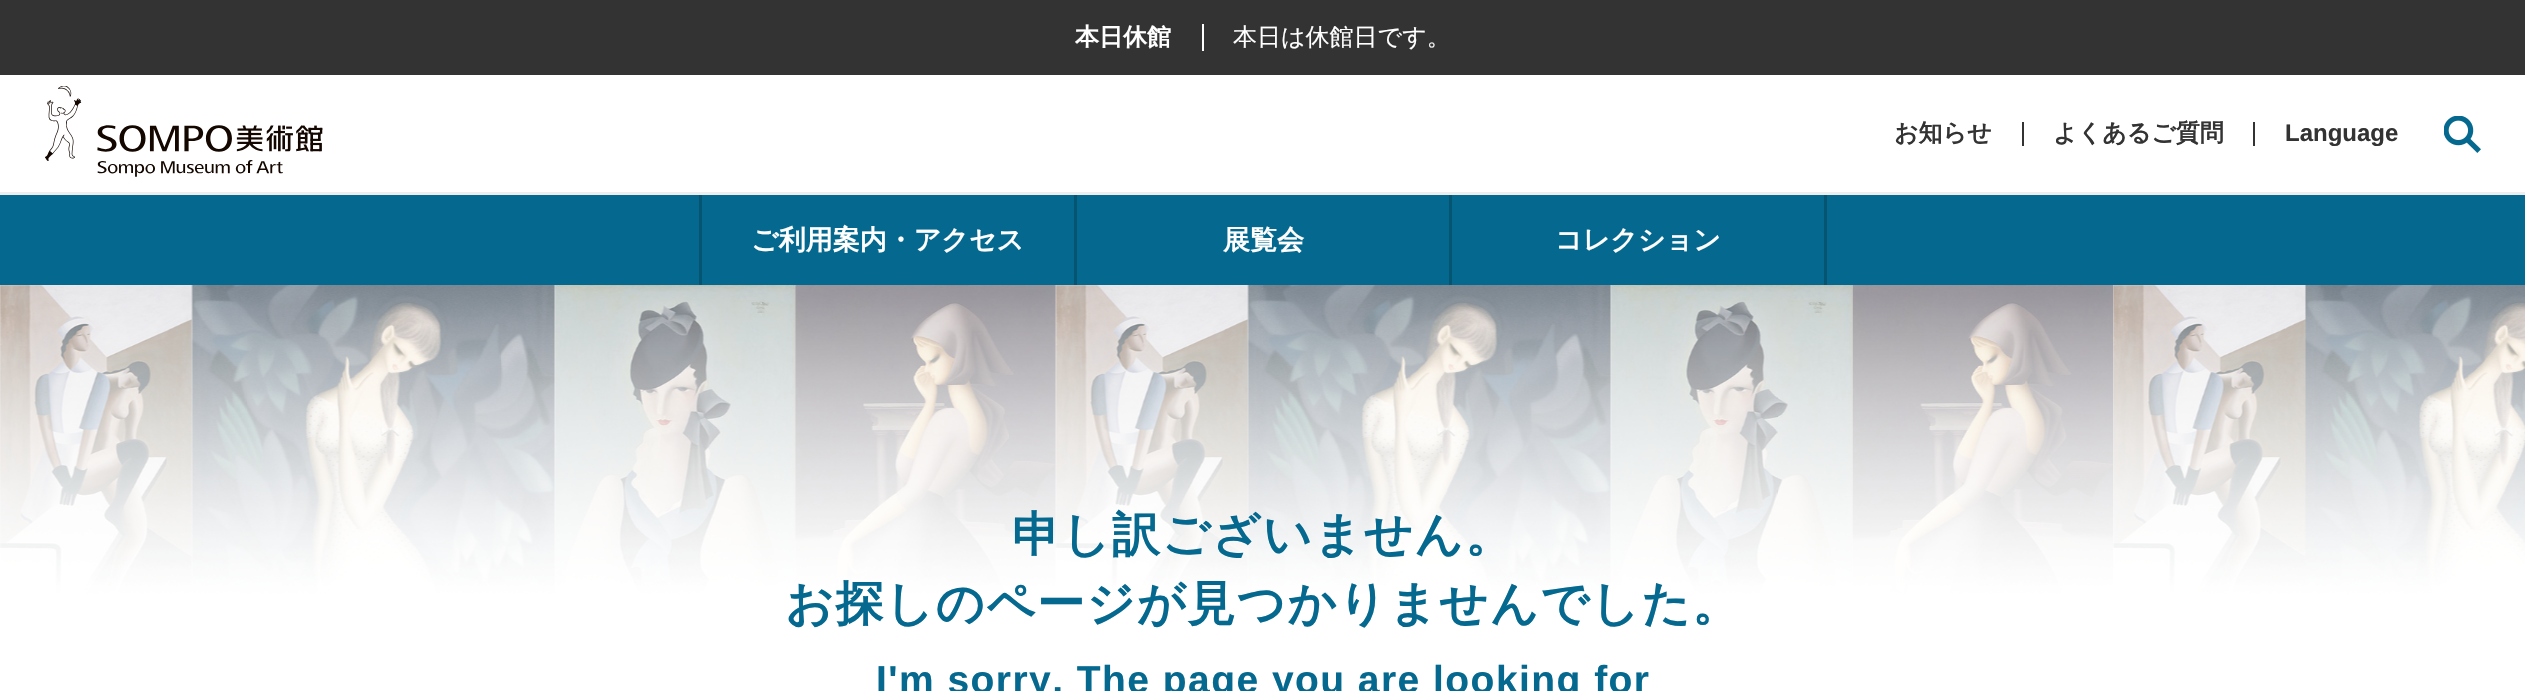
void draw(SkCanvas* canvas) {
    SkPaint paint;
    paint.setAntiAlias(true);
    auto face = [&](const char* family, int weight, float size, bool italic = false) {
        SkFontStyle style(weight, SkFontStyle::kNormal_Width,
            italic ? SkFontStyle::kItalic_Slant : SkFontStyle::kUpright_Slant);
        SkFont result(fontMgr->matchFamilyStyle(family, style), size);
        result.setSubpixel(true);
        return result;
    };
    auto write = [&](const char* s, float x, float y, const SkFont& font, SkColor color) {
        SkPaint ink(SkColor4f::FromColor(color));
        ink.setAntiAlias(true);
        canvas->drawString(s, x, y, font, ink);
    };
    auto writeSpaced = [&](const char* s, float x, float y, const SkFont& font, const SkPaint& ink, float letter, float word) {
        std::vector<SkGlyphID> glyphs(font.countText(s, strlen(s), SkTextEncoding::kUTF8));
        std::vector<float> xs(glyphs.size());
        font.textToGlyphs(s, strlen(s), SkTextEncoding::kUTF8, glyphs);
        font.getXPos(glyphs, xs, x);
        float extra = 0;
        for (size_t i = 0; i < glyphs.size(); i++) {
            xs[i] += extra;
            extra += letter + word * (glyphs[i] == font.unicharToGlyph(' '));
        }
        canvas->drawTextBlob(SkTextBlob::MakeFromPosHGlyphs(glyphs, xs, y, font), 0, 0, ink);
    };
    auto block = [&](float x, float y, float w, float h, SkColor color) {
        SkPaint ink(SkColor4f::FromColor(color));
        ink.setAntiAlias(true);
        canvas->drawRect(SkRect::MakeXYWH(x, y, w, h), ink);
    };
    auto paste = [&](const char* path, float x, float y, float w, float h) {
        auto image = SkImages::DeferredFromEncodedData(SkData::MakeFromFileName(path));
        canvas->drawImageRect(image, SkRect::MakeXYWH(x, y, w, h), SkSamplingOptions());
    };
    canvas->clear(SkColorSetRGB(5, 105, 143));
    block(0, 75, 2525, 117, SK_ColorWHITE);
    block(0, 0, 2525, 75, SkColorSetRGB(51, 51, 51));
    block(1202, 24, 2, 27, SK_ColorWHITE);
    auto kFont1 = face("WenQuanYi Zen Hei", 700, 24);
    write("本日休館", 1075, 45, kFont1, SK_ColorWHITE);
    auto kFont2 = face("WenQuanYi Zen Hei", 500, 24);
    write("本日は休館日です。", 1233, 45, kFont2, SK_ColorWHITE);
    block(0, 192, 2525, 3, SkColorSetRGB(238, 238, 238));
    paste("pic1.png", 45, 86, 278, 91);
    write("お知らせ", 1894, 141, kFont1, SkColorSetRGB(51, 51, 51));
    block(2022, 122, 2, 24, SkColorSetRGB(51, 51, 51));
    write("よくあるご質問", 2053, 141, kFont1, SkColorSetRGB(51, 51, 51));
    block(2253, 122, 2, 24, SkColorSetRGB(51, 51, 51));
    auto kFont3 = face("Liberation Sans", 700, 24);
    write("Language", 2285, 141, kFont3, SkColorSetRGB(51, 51, 51));
    paste("pic2.png", 2444, 116, 37, 37);
    block(699, 195, 3, 90, SkColorSetRGB(4, 84, 114));
    block(1074, 195, 3, 90, SkColorSetRGB(4, 84, 114));
    auto kFont4 = face("WenQuanYi Zen Hei", 700, 27);
    write("ご利用案内・アクセス", 751, 249, kFont4, SK_ColorWHITE);
    block(1449, 195, 3, 90, SkColorSetRGB(4, 84, 114));
    write("展覧会", 1223, 249, kFont4, SK_ColorWHITE);
    block(1824, 195, 3, 90, SkColorSetRGB(4, 84, 114));
    write("コレクション", 1555, 249, kFont4, SK_ColorWHITE);
    block(0, 285, 2525, 406, SK_ColorWHITE);
    paste("pic3.png", 0, 285, 1, 309);
    paste("pic4.png", 0, 285, 193, 309);
    paste("pic5.png", 191, 285, 365, 309);
    paste("pic6.png", 554, 285, 242, 309);
    paste("pic7.png", 794, 285, 263, 309);
    paste("pic8.png", 1055, 285, 194, 309);
    paste("pic9.png", 1247, 285, 365, 309);
    paste("pic10.png", 1610, 285, 243, 309);
    paste("pic11.png", 1852, 285, 262, 309);
    paste("pic12.png", 2113, 285, 193, 309);
    paste("pic13.png", 2305, 285, 220, 309);
    paste("pic14.png", 0, 285, 2525, 341);
    auto kFont5 = face("WenQuanYi Zen Hei", 700, 48);
    paint.setColor(SkColorSetRGB(5, 105, 143));
    writeSpaced("申し訳ございません。", 1012, 551, kFont5, paint, 1.45f, 0);
    writeSpaced("お探しのページが見つかりませんでした。", 785, 620, kFont5, paint, 1.45f, 0);
    auto kFont6 = face("Liberation Sans", 700, 39);
    writeSpaced("I'm sorry. The page you are looking for", 876, 693, kFont6, paint, 1.45f, 0);
}
